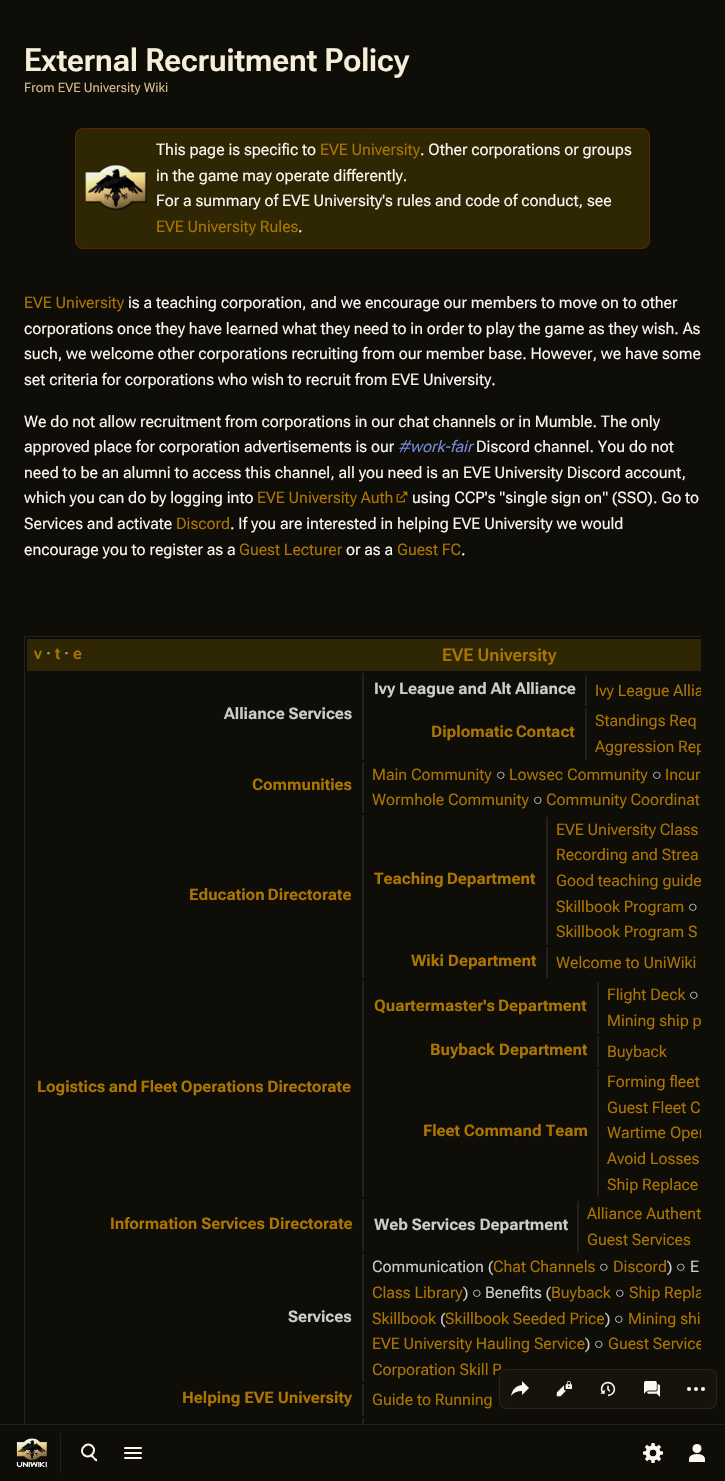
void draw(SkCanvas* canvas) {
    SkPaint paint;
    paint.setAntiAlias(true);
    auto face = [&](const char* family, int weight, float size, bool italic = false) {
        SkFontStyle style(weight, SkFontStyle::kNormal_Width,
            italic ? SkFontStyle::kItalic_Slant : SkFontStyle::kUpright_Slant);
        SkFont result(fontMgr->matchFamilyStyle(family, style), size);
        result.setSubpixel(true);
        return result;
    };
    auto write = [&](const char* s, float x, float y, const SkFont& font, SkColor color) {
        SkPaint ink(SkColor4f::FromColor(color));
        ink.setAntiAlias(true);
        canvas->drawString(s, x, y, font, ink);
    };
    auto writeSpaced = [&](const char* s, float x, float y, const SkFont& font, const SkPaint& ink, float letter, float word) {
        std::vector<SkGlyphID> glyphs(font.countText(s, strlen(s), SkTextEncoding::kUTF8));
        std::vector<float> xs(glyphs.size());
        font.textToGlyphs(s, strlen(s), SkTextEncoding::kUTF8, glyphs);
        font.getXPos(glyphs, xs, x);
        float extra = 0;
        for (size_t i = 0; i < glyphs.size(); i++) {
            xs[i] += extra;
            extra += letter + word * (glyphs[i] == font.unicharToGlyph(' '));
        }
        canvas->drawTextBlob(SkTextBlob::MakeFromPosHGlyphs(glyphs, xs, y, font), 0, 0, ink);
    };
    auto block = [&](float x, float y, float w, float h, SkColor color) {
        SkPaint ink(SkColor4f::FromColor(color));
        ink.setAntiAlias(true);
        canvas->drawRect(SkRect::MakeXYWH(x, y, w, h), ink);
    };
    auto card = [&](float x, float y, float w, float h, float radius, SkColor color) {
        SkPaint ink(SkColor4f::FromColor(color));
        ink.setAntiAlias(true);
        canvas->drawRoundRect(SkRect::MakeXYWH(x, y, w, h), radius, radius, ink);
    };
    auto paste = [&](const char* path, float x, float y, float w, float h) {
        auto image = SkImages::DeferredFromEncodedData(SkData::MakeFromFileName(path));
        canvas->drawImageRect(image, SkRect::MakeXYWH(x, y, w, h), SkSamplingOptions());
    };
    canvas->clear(SkColorSetRGB(15, 13, 8));
    auto kFont1 = face("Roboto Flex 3", 600, 32);
    write("External Recruitment Policy", 24, 71, kFont1, SkColorSetRGB(247, 238, 216));
    auto kFont2 = face("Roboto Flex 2", 400, 13);
    write("From EVE University Wiki", 24, 92, kFont2, SkColorSetRGB(210, 187, 138));
    canvas->save();
    canvas->clipRect(SkRect::MakeXYWH(24, 620, 677, 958));
    paint.setStyle(SkPaint::kStroke_Style);
    paint.setStrokeWidth(1);
    paint.setColor(SkColorSetRGB(34, 34, 34));
    canvas->drawRect(SkRect::MakeXYWH(24.5f, 636.5f, 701, 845), paint);
    canvas->restore();
    auto kFont3 = face("Roboto Flex", 400, 16);
    write("Corporation Skill P", 372, 1375, kFont3, SkColorSetRGB(172, 117, 0));
    card(499, 1369, 218, 40, 8, SkColorSetRGB(23, 19, 12));
    paint.setColor(SkColorSetARGB(20, 255, 255, 255));
    canvas->drawRoundRect(SkRect::MakeXYWH(499.5f, 1369.5f, 217, 39), 7.5f, 7.5f, paint);
    paste("pic1.png", 511, 1381, 18, 15);
    paste("pic2.png", 556, 1381, 16, 16);
    paste("pic3.png", 600, 1381, 16, 16);
    paste("pic4.png", 644, 1381, 16, 16);
    paste("pic5.png", 687, 1387, 18, 4);
    paint.setStyle(SkPaint::kFill_Style);
    paint.setColor(SkColorSetRGB(47, 39, 4));
    canvas->drawRoundRect(SkRect::MakeXYWH(75.5f, 128.5f, 574, 120), 7.5f, 7.5f, paint);
    paint.setStyle(SkPaint::kStroke_Style);
    paint.setColor(SkColorSetRGB(88, 40, 6));
    canvas->drawRoundRect(SkRect::MakeXYWH(75.5f, 128.5f, 574, 120), 7.5f, 7.5f, paint);
    paste("pic6.png", 85, 165, 62, 46);
    write("This page is specific to", 156, 155, kFont3, SkColorSetRGB(251, 248, 241));
    write("EVE University", 320, 155, kFont3, SkColorSetRGB(172, 117, 0));
    write(". Other corporations or groups", 420, 155, kFont3, SkColorSetRGB(251, 248, 241));
    write("in the game may operate differently.", 156, 181, kFont3, SkColorSetRGB(251, 248, 241));
    write("For a summary of EVE University's rules and code of conduct, see", 156, 206, kFont3, SkColorSetRGB(251, 248, 241));
    write("EVE University Rules", 156, 232, kFont3, SkColorSetRGB(172, 117, 0));
    write(".", 298, 232, kFont3, SkColorSetRGB(251, 248, 241));
    write("EVE University", 24, 308, kFont3, SkColorSetRGB(172, 117, 0));
    write("is a teaching corporation, and we encourage our members to move on to other", 128, 308, kFont3, SkColorSetRGB(251, 248, 241));
    write("corporations once they have learned what they need to in order to play the game as they wish. As", 24, 334, kFont3, SkColorSetRGB(251, 248, 241));
    write("such, we welcome other corporations recruiting from our member base. However, we have some", 24, 359, kFont3, SkColorSetRGB(251, 248, 241));
    write("set criteria for corporations who wish to recruit from EVE University.", 24, 385, kFont3, SkColorSetRGB(251, 248, 241));
    write("We do not allow recruitment from corporations in our chat channels or in Mumble. The only", 24, 427, kFont3, SkColorSetRGB(251, 248, 241));
    write("approved place for corporation advertisements is our", 24, 452, kFont3, SkColorSetRGB(251, 248, 241));
    auto kFont4 = face("Roboto Flex", 400, 16, true);
    write("#work-fair", 398, 452, kFont4, SkColorSetRGB(115, 137, 218));
    write("Discord channel. You do not", 476, 452, kFont3, SkColorSetRGB(251, 248, 241));
    write("need to be an alumni to access this channel, all you need is an EVE University Discord account,", 24, 478, kFont3, SkColorSetRGB(251, 248, 241));
    write("which you can do by logging into", 24, 503, kFont3, SkColorSetRGB(251, 248, 241));
    write("EVE University Auth", 257, 503, kFont3, SkColorSetRGB(172, 117, 0));
    paste("pic7.png", 396, 491, 12, 12);
    write("using CCP's \"single sign on\" (SSO). Go to", 412, 503, kFont3, SkColorSetRGB(251, 248, 241));
    write("Services and activate", 24, 529, kFont3, SkColorSetRGB(251, 248, 241));
    write("Discord", 176, 529, kFont3, SkColorSetRGB(172, 117, 0));
    write(". If you are interested in helping EVE University we would", 230, 529, kFont3, SkColorSetRGB(251, 248, 241));
    write("encourage you to register as a", 24, 555, kFont3, SkColorSetRGB(251, 248, 241));
    write("Guest Lecturer", 239, 555, kFont3, SkColorSetRGB(172, 117, 0));
    write("or as a", 346, 555, kFont3, SkColorSetRGB(251, 248, 241));
    write("Guest FC", 397, 555, kFont3, SkColorSetRGB(172, 117, 0));
    write(".", 461, 555, kFont3, SkColorSetRGB(251, 248, 241));
    block(28, 640, 673, 30, SkColorSetRGB(47, 39, 4));
    canvas->save();
    canvas->clipRect(SkRect::MakeXYWH(24, 620, 677, 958));
    paint.setColor(SkColorSetRGB(45, 36, 19));
    canvas->drawRect(SkRect::MakeXYWH(27.5f, 639.5f, 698, 31), paint);
    canvas->restore();
    auto kFont5 = face("Roboto Flex", 600, 16);
    write("v", 34, 659, kFont5, SkColorSetRGB(172, 117, 0));
    write("·", 46, 659, kFont5, SkColorSetRGB(184, 153, 100));
    write("t", 55, 659, kFont5, SkColorSetRGB(172, 117, 0));
    write("·", 64, 659, kFont5, SkColorSetRGB(184, 153, 100));
    write("e", 73, 659, kFont5, SkColorSetRGB(172, 117, 0));
    auto kFont6 = face("Roboto Flex 2", 600, 17.5f);
    write("EVE University", 442, 661, kFont6, SkColorSetRGB(172, 117, 0));
    auto kFont7 = face("Roboto Flex", 700, 16);
    write("Alliance Services", 224, 719, kFont7, SkColorSetRGB(204, 204, 204));
    block(362, 673, 2, 87, SkColorSetRGB(34, 32, 28));
    write("Ivy League and Alt Alliance", 374, 694, kFont7, SkColorSetRGB(204, 204, 204));
    block(585, 675, 2, 31, SkColorSetRGB(34, 32, 28));
    canvas->save();
    canvas->clipRect(SkRect::MakeXYWH(24, 620, 677, 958));
    write("Ivy League Allia", 595, 696, kFont3, SkColorSetRGB(172, 117, 0));
    canvas->restore();
    paint.setStyle(SkPaint::kFill_Style);
    paint.setColor(SkColorSetRGB(172, 117, 0));
    writeSpaced("Diplomatic Contact", 431, 737, kFont7, paint, 0, -1);
    block(585, 708, 2, 52, SkColorSetRGB(34, 32, 28));
    write("Standings Req", 595, 726, kFont3, SkColorSetRGB(172, 117, 0));
    canvas->save();
    canvas->clipRect(SkRect::MakeXYWH(24, 620, 677, 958));
    write("Aggression Rep", 595, 752, kFont3, SkColorSetRGB(172, 117, 0));
    canvas->restore();
    write("Communities", 252, 790, kFont7, SkColorSetRGB(172, 117, 0));
    block(362, 762, 2, 51, SkColorSetRGB(34, 32, 28));
    write("Main Community", 372, 780, kFont3, SkColorSetRGB(172, 117, 0));
    auto kFont8 = face("Liberation Sans", 700, 16);
    write("○", 496, 780, kFont8, SkColorSetRGB(204, 204, 204));
    write("Lowsec Community", 509, 780, kFont3, SkColorSetRGB(172, 117, 0));
    write("○", 652, 780, kFont8, SkColorSetRGB(204, 204, 204));
    write("Incur", 665, 780, kFont3, SkColorSetRGB(172, 117, 0));
    write("Wormhole Community", 372, 805, kFont3, SkColorSetRGB(172, 117, 0));
    write("○", 533, 805, kFont8, SkColorSetRGB(204, 204, 204));
    write("Community Coordinat", 546, 805, kFont3, SkColorSetRGB(172, 117, 0));
    writeSpaced("Education Directorate", 189, 900, kFont7, paint, 0, -1);
    block(362, 815, 2, 163, SkColorSetRGB(34, 32, 28));
    writeSpaced("Teaching Department", 374, 884, kFont7, paint, 0, -1);
    block(546, 817, 2, 128, SkColorSetRGB(34, 32, 28));
    write("EVE University Class", 556, 835, kFont3, SkColorSetRGB(172, 117, 0));
    write("Recording and Strea", 556, 860, kFont3, SkColorSetRGB(172, 117, 0));
    write("Good teaching guide", 556, 886, kFont3, SkColorSetRGB(172, 117, 0));
    write("Skillbook Program", 556, 912, kFont3, SkColorSetRGB(172, 117, 0));
    write("○", 688, 912, kFont8, SkColorSetRGB(204, 204, 204));
    write("Skillbook Program S", 556, 937, kFont3, SkColorSetRGB(172, 117, 0));
    write("Wiki Department", 411, 966, kFont7, SkColorSetRGB(172, 117, 0));
    block(546, 947, 2, 31, SkColorSetRGB(34, 32, 28));
    write("Welcome to UniWiki", 556, 968, kFont3, SkColorSetRGB(172, 117, 0));
    writeSpaced("Logistics and Fleet Operations Directorate", 37, 1092, kFont7, paint, 0, -0.5f);
    block(362, 980, 2, 217, SkColorSetRGB(34, 32, 28));
    writeSpaced("Quartermaster's Department", 374, 1011, kFont7, paint, 0, -1);
    block(597, 982, 2, 52, SkColorSetRGB(34, 32, 28));
    write("Flight Deck", 607, 1000, kFont3, SkColorSetRGB(172, 117, 0));
    write("○", 689, 1000, kFont8, SkColorSetRGB(204, 204, 204));
    write("Mining ship p", 607, 1026, kFont3, SkColorSetRGB(172, 117, 0));
    write("Buyback Department", 430, 1055, kFont7, SkColorSetRGB(172, 117, 0));
    block(597, 1036, 2, 31, SkColorSetRGB(34, 32, 28));
    write("Buyback", 607, 1057, kFont3, SkColorSetRGB(172, 117, 0));
    write("Fleet Command Team", 423, 1136, kFont7, SkColorSetRGB(172, 117, 0));
    block(597, 1069, 2, 128, SkColorSetRGB(34, 32, 28));
    write("Forming fleet", 607, 1087, kFont3, SkColorSetRGB(172, 117, 0));
    write("Guest Fleet C", 607, 1113, kFont3, SkColorSetRGB(172, 117, 0));
    canvas->save();
    canvas->clipRect(SkRect::MakeXYWH(24, 620, 677, 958));
    write("Wartime Oper", 607, 1138, kFont3, SkColorSetRGB(172, 117, 0));
    canvas->restore();
    write("Avoid Losses", 607, 1164, kFont3, SkColorSetRGB(172, 117, 0));
    write("Ship Replace", 607, 1190, kFont3, SkColorSetRGB(172, 117, 0));
    write("Information Services Directorate", 110, 1229, kFont7, SkColorSetRGB(172, 117, 0));
    block(362, 1199, 2, 53, SkColorSetRGB(34, 32, 28));
    write("Web Services Department", 374, 1230, kFont7, SkColorSetRGB(204, 204, 204));
    block(577, 1201, 2, 51, SkColorSetRGB(34, 32, 28));
    write("Alliance Authent", 587, 1219, kFont3, SkColorSetRGB(172, 117, 0));
    write("Guest Services", 587, 1245, kFont3, SkColorSetRGB(172, 117, 0));
    write("Services", 288, 1322, kFont7, SkColorSetRGB(204, 204, 204));
    block(362, 1254, 2, 128, SkColorSetRGB(34, 32, 28));
    write("Communication (", 372, 1272, kFont3, SkColorSetRGB(204, 204, 204));
    write("Chat Channels", 493, 1272, kFont3, SkColorSetRGB(172, 117, 0));
    write("○", 599, 1272, kFont8, SkColorSetRGB(204, 204, 204));
    write("Discord", 613, 1272, kFont3, SkColorSetRGB(172, 117, 0));
    write(")", 667, 1272, kFont3, SkColorSetRGB(204, 204, 204));
    write("○", 676, 1272, kFont8, SkColorSetRGB(204, 204, 204));
    write("E", 690, 1272, kFont3, SkColorSetRGB(204, 204, 204));
    write("Class Library", 372, 1298, kFont3, SkColorSetRGB(172, 117, 0));
    write(")", 463, 1298, kFont3, SkColorSetRGB(204, 204, 204));
    write("○", 472, 1298, kFont8, SkColorSetRGB(204, 204, 204));
    write("Benefits (", 485, 1298, kFont3, SkColorSetRGB(204, 204, 204));
    write("Buyback", 551, 1298, kFont3, SkColorSetRGB(172, 117, 0));
    write("○", 615, 1298, kFont8, SkColorSetRGB(204, 204, 204));
    canvas->save();
    canvas->clipRect(SkRect::MakeXYWH(24, 620, 677, 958));
    write("Ship Repla", 629, 1298, kFont3, SkColorSetRGB(172, 117, 0));
    canvas->restore();
    write("Skillbook", 372, 1324, kFont3, SkColorSetRGB(172, 117, 0));
    write("(", 440, 1324, kFont3, SkColorSetRGB(204, 204, 204));
    write("Skillbook Seeded Price", 445, 1324, kFont3, SkColorSetRGB(172, 117, 0));
    write(")", 605, 1324, kFont3, SkColorSetRGB(204, 204, 204));
    write("○", 614, 1324, kFont8, SkColorSetRGB(204, 204, 204));
    write("Mining shi", 628, 1324, kFont3, SkColorSetRGB(172, 117, 0));
    write("EVE University Hauling Service", 372, 1349, kFont3, SkColorSetRGB(172, 117, 0));
    write(")", 585, 1349, kFont3, SkColorSetRGB(204, 204, 204));
    write("○", 594, 1349, kFont8, SkColorSetRGB(204, 204, 204));
    canvas->save();
    canvas->clipRect(SkRect::MakeXYWH(24, 620, 677, 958));
    write("Guest Service", 608, 1349, kFont3, SkColorSetRGB(172, 117, 0));
    canvas->restore();
    write("Helping EVE University", 182, 1403, kFont7, SkColorSetRGB(172, 117, 0));
    block(362, 1384, 2, 32, SkColorSetRGB(34, 32, 28));
    write("Guide to Running", 372, 1405, kFont3, SkColorSetRGB(172, 117, 0));
    block(362, 1418, 2, 6, SkColorSetRGB(34, 32, 28));
    block(24, 1425, 1, 56, SkColorSetRGB(15, 13, 8));
    block(0, 1424, 725, 1, SkColorSetRGB(34, 32, 28));
    block(60, 1433, 1, 40, SkColorSetRGB(34, 32, 28));
    paste("pic8.png", 16, 1438, 31, 29);
    paint.setColor(SkColorSetRGB(251, 248, 241));
    canvas->drawPath(SkPathBuilder().moveTo(91, 1455).cubicTo(92.5f, 1454, 94, 1456.5f, 94.5f, 1457.5f).cubicTo(95.5f, 1458, 98, 1459.5f, 97, 1461).cubicTo(95.5f, 1462, 94, 1459.5f, 93.5f, 1458.5f).cubicTo(92.5f, 1458, 90, 1456.5f, 91, 1455).close().detach(), paint);
    paint.setStyle(SkPaint::kStroke_Style);
    paint.setStrokeWidth(2);
    canvas->drawPath(SkPathBuilder().moveTo(84, 1446.5f).cubicTo(89.5f, 1440.5f, 98, 1449, 92, 1454.5f).cubicTo(86.5f, 1460.5f, 78, 1452, 84, 1446.5f).close().detach(), paint);
    card(124, 1447, 18, 2, 1, SkColorSetRGB(251, 248, 241));
    card(124, 1452, 18, 2, 1, SkColorSetRGB(251, 248, 241));
    card(124, 1457, 18, 2, 1, SkColorSetRGB(251, 248, 241));
    paste("pic9.png", 643, 1443, 20, 20);
    paste("pic10.png", 689, 1444, 16, 18);
}
